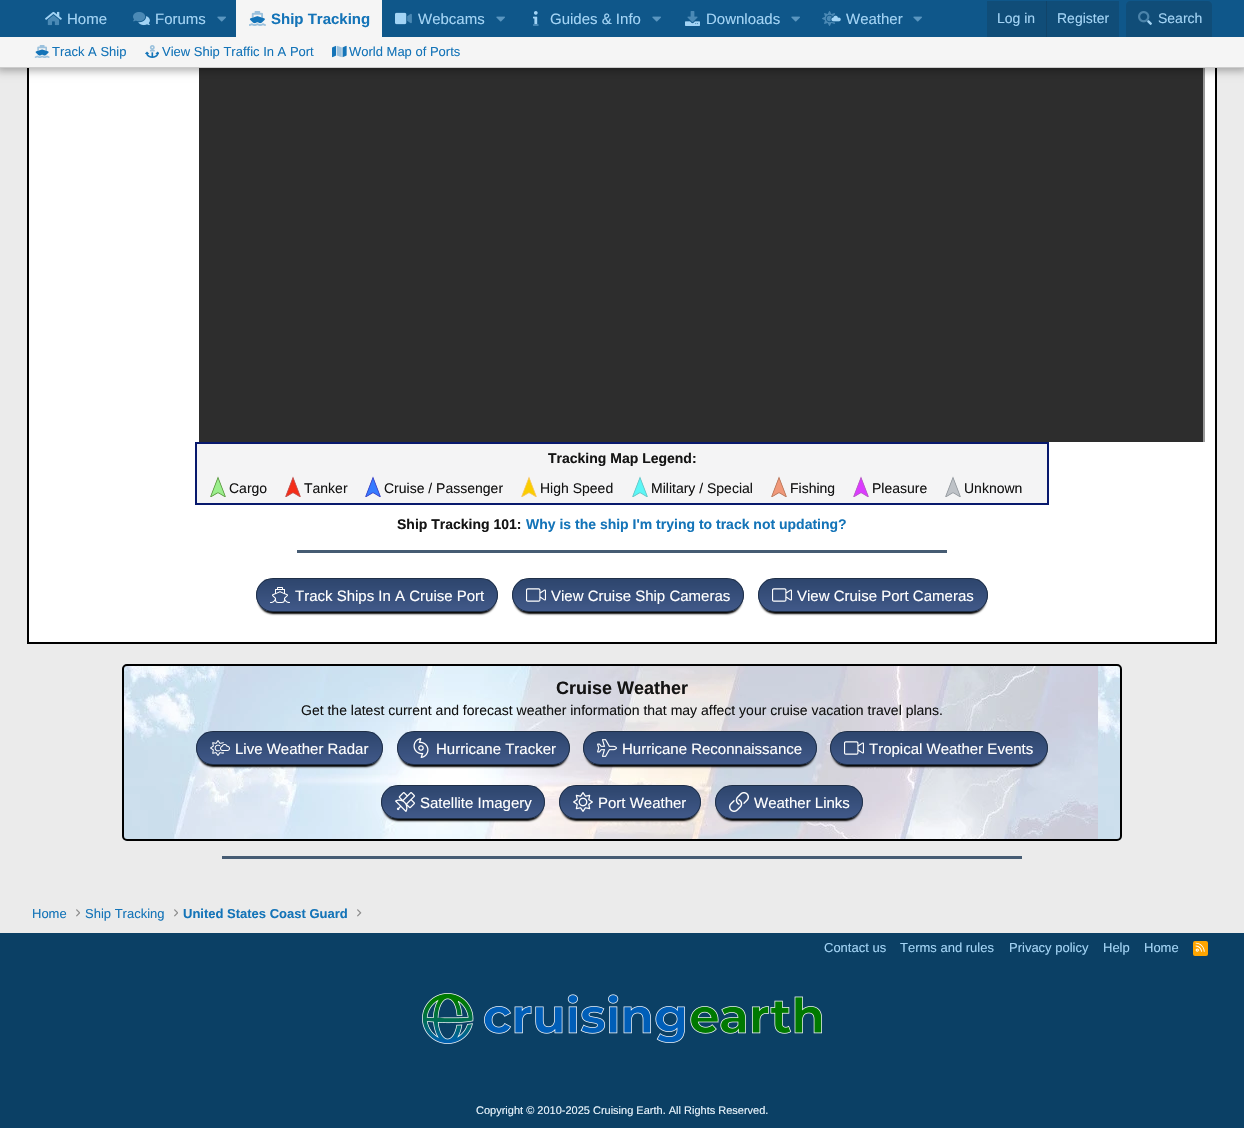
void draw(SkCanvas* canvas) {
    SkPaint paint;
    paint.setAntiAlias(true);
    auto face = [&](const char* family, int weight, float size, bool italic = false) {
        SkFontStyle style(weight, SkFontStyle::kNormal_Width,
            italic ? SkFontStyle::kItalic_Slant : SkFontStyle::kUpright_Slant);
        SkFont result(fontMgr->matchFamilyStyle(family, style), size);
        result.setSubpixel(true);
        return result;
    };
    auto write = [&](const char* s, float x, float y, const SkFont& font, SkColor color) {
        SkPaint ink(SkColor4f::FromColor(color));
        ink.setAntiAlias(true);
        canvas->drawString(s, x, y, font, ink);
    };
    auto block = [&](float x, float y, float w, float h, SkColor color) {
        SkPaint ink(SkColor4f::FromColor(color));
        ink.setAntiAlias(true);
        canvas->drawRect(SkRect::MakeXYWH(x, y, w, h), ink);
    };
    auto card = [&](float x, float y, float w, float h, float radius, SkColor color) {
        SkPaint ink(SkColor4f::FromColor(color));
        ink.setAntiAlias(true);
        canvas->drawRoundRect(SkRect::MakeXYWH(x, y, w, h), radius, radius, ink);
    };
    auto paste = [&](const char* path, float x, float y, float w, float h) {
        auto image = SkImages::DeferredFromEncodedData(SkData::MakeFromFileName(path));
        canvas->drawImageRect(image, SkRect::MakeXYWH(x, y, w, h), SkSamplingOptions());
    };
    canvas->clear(SkColorSetRGB(235, 235, 235));
    block(29, 68, 1186, 574, SK_ColorWHITE);
    paint.setStyle(SkPaint::kStroke_Style);
    paint.setStrokeWidth(2);
    paint.setColor(SK_ColorBLACK);
    canvas->drawRect(SkRect::MakeXYWH(28, -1, 1188, 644), paint);
    block(199, 68, 1004, 374, SkColorSetRGB(45, 45, 45));
    block(1203, 68, 2, 374, SkColorSetRGB(153, 153, 153));
    paint.setStyle(SkPaint::kFill_Style);
    paint.setColor(SkColorSetARGB(77, 0, 0, 0));
    paint.setMaskFilter(SkMaskFilter::MakeBlur(kNormal_SkBlurStyle, 4));
    canvas->drawRect(SkRect::MakeXYWH(-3, -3, 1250, 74), paint);
    paint.setMaskFilter(nullptr);
    block(0, 0, 1244, 37, SkColorSetRGB(15, 87, 138));
    paste("pic1.png", 45, 11, 17, 15);
    auto kFont1 = face("Liberation Sans", 400, 15);
    write("Home", 67, 24, kFont1, SkColorSetRGB(163, 212, 245));
    paste("pic2.png", 133, 12, 17, 14);
    write("Forums", 155, 24, kFont1, SkColorSetRGB(163, 212, 245));
    paste("pic3.png", 217, 16, 9, 6);
    block(236, 0, 146, 37, SkColorSetRGB(245, 245, 245));
    paste("pic4.png", 249, 11, 17, 15);
    auto kFont2 = face("Liberation Sans", 700, 15);
    write("Ship Tracking", 271, 24, kFont2, SkColorSetRGB(20, 116, 184));
    paste("pic5.png", 395, 12, 17, 13);
    write("Webcams", 418, 24, kFont1, SkColorSetRGB(163, 212, 245));
    paste("pic3.png", 496, 16, 9, 6);
    paste("pic6.png", 533, 11, 6, 15);
    write("Guides & Info", 550, 24, kFont1, SkColorSetRGB(163, 212, 245));
    paste("pic3.png", 652, 16, 9, 6);
    paste("pic7.png", 685, 11, 15, 15);
    write("Downloads", 706, 24, kFont1, SkColorSetRGB(163, 212, 245));
    paste("pic3.png", 791, 16, 9, 6);
    paste("pic8.png", 822, 11, 19, 15);
    write("Weather", 846, 24, kFont1, SkColorSetRGB(163, 212, 245));
    paste("pic3.png", 913, 16, 9, 6);
    block(987, 1, 132, 36, SkColorSetRGB(16, 77, 120));
    auto kFont3 = face("Liberation Sans", 400, 14);
    write("Log in", 997, 23, kFont3, SkColorSetRGB(163, 212, 245));
    block(1046, 1, 1, 36, SkColorSetRGB(17, 68, 105));
    write("Register", 1057, 23, kFont3, SkColorSetRGB(163, 212, 245));
    paint.setColor(SkColorSetRGB(16, 77, 120));
    canvas->drawPath(SkPathBuilder().moveTo(1130, 1).lineTo(1208, 1).cubicTo(1210, 1, 1212, 3, 1212, 5).lineTo(1212, 37).lineTo(1126, 37).lineTo(1126, 5).cubicTo(1126, 3, 1128, 1, 1130, 1).close().detach(), paint);
    paste("pic9.png", 1138, 11, 14, 14);
    write("Search", 1158, 23, kFont3, SkColorSetRGB(163, 212, 245));
    block(0, 37, 1244, 30, SkColorSetRGB(245, 245, 245));
    block(0, 67, 1244, 1, SkColorSetRGB(204, 204, 204));
    paste("pic10.png", 34, 45, 16, 13);
    auto kFont4 = face("Liberation Sans", 400, 13);
    write("Track A Ship", 52, 56, kFont4, SkColorSetRGB(20, 116, 184));
    paste("pic11.png", 145, 45, 14, 13);
    write("View Ship Traffic In A Port", 162, 56, kFont4, SkColorSetRGB(20, 116, 184));
    paste("pic12.png", 332, 45, 15, 13);
    write("World Map of Ports", 349, 56, kFont4, SkColorSetRGB(20, 116, 184));
    paint.setColor(SkColorSetRGB(244, 244, 245));
    canvas->drawRect(SkRect::MakeXYWH(196, 443, 852, 61), paint);
    paint.setStyle(SkPaint::kStroke_Style);
    paint.setColor(SkColorSetRGB(8, 25, 109));
    canvas->drawRect(SkRect::MakeXYWH(196, 443, 852, 61), paint);
    auto kFont5 = face("Liberation Sans", 700, 14);
    write("Tracking Map Legend:", 548, 463, kFont5, SkColorSetRGB(20, 20, 20));
    paste("pic13.png", 210, 476, 16, 21);
    write("Cargo", 229, 493, kFont3, SkColorSetRGB(20, 20, 20));
    paste("pic14.png", 285, 476, 16, 21);
    write("Tanker", 304, 493, kFont3, SkColorSetRGB(20, 20, 20));
    paste("pic15.png", 365, 476, 16, 21);
    write("Cruise / Passenger", 384, 493, kFont3, SkColorSetRGB(20, 20, 20));
    paste("pic16.png", 521, 476, 16, 21);
    write("High Speed", 540, 493, kFont3, SkColorSetRGB(20, 20, 20));
    paste("pic17.png", 632, 476, 16, 21);
    write("Military / Special", 651, 493, kFont3, SkColorSetRGB(20, 20, 20));
    paste("pic18.png", 771, 476, 16, 21);
    write("Fishing", 790, 493, kFont3, SkColorSetRGB(20, 20, 20));
    paste("pic19.png", 853, 476, 16, 21);
    write("Pleasure", 872, 493, kFont3, SkColorSetRGB(20, 20, 20));
    paste("pic20.png", 945, 476, 16, 21);
    write("Unknown", 964, 493, kFont3, SkColorSetRGB(20, 20, 20));
    write("Ship Tracking 101:", 397, 529, kFont5, SkColorSetRGB(20, 20, 20));
    write("Why is the ship I'm trying to track not updating?", 526, 529, kFont5, SkColorSetRGB(20, 116, 184));
    block(297, 550, 650, 3, SkColorSetRGB(70, 92, 115));
    paint.setStyle(SkPaint::kFill_Style);
    paint.setColor(SK_ColorBLACK);
    paint.setMaskFilter(SkMaskFilter::MakeBlur(kNormal_SkBlurStyle, 1));
    canvas->drawRoundRect(SkRect::MakeXYWH(258, 584, 238, 30), 15, 15, paint);
    paint.setMaskFilter(nullptr);
    canvas->save();
    canvas->clipPath(SkPathBuilder().moveTo(273, 578).lineTo(481, 578).cubicTo(490.5f, 578, 498, 585.5f, 498, 595).cubicTo(498, 604.5f, 490.5f, 612, 481, 612).lineTo(273, 612).cubicTo(263.5f, 612, 256, 604.5f, 256, 595).cubicTo(256, 585.5f, 263.5f, 578, 273, 578).close().detach(), true);
    {
        const SkColor colors[] = {SkColorSetRGB(46, 70, 110), SkColorSetRGB(65, 89, 137)};
        const float stops[] = {0.05f, 1};
        const SkPoint ends[] = {{377, 579}, {377, 611}};
        paint.setShader(SkGradientShader::MakeLinear(ends, colors, stops, 2, SkTileMode::kClamp));
        paint.setAlpha(255);
    }
    canvas->drawRect(SkRect::MakeXYWH(256, 579, 242, 32), paint);
    canvas->restore();
    paint.setStyle(SkPaint::kStroke_Style);
    paint.setStrokeWidth(1);
    paint.setShader(nullptr);
    paint.setColor(SkColorSetRGB(31, 47, 71));
    canvas->drawRoundRect(SkRect::MakeXYWH(256.5f, 578.5f, 241, 33), 16.5f, 16.5f, paint);
    paste("pic21.png", 270, 587, 20, 16);
    write("Track Ships In A Cruise Port", 295, 601, kFont1, SK_ColorWHITE);
    paint.setStyle(SkPaint::kFill_Style);
    paint.setColor(SK_ColorBLACK);
    paint.setMaskFilter(SkMaskFilter::MakeBlur(kNormal_SkBlurStyle, 1));
    canvas->drawRoundRect(SkRect::MakeXYWH(514, 584, 228, 30), 15, 15, paint);
    paint.setMaskFilter(nullptr);
    canvas->save();
    canvas->clipPath(SkPathBuilder().moveTo(529, 578).lineTo(727, 578).cubicTo(736.5f, 578, 744, 585.5f, 744, 595).cubicTo(744, 604.5f, 736.5f, 612, 727, 612).lineTo(529, 612).cubicTo(519.5f, 612, 512, 604.5f, 512, 595).cubicTo(512, 585.5f, 519.5f, 578, 529, 578).close().detach(), true);
    {
        const SkColor colors[] = {SkColorSetRGB(46, 70, 110), SkColorSetRGB(65, 89, 137)};
        const float stops[] = {0.05f, 1};
        const SkPoint ends[] = {{628, 579}, {628, 611}};
        paint.setShader(SkGradientShader::MakeLinear(ends, colors, stops, 2, SkTileMode::kClamp));
        paint.setAlpha(255);
    }
    canvas->drawRect(SkRect::MakeXYWH(512, 579, 232, 32), paint);
    canvas->restore();
    paint.setStyle(SkPaint::kStroke_Style);
    paint.setShader(nullptr);
    paint.setColor(SkColorSetRGB(31, 47, 71));
    canvas->drawRoundRect(SkRect::MakeXYWH(512.5f, 578.5f, 231, 33), 16.5f, 16.5f, paint);
    paste("pic22.png", 526, 588, 20, 14);
    write("View Cruise Ship Cameras", 551, 601, kFont1, SK_ColorWHITE);
    paint.setStyle(SkPaint::kFill_Style);
    paint.setColor(SK_ColorBLACK);
    paint.setMaskFilter(SkMaskFilter::MakeBlur(kNormal_SkBlurStyle, 1));
    canvas->drawRoundRect(SkRect::MakeXYWH(760, 584, 226, 30), 15, 15, paint);
    paint.setMaskFilter(nullptr);
    canvas->save();
    canvas->clipPath(SkPathBuilder().moveTo(775, 578).lineTo(971, 578).cubicTo(980.5f, 578, 988, 585.5f, 988, 595).cubicTo(988, 604.5f, 980.5f, 612, 971, 612).lineTo(775, 612).cubicTo(765.5f, 612, 758, 604.5f, 758, 595).cubicTo(758, 585.5f, 765.5f, 578, 775, 578).close().detach(), true);
    {
        const SkColor colors[] = {SkColorSetRGB(46, 70, 110), SkColorSetRGB(65, 89, 137)};
        const float stops[] = {0.05f, 1};
        const SkPoint ends[] = {{873, 579}, {873, 611}};
        paint.setShader(SkGradientShader::MakeLinear(ends, colors, stops, 2, SkTileMode::kClamp));
        paint.setAlpha(255);
    }
    canvas->drawRect(SkRect::MakeXYWH(758, 579, 230, 32), paint);
    canvas->restore();
    paint.setStyle(SkPaint::kStroke_Style);
    paint.setShader(nullptr);
    paint.setColor(SkColorSetRGB(31, 47, 71));
    canvas->drawRoundRect(SkRect::MakeXYWH(758.5f, 578.5f, 229, 33), 16.5f, 16.5f, paint);
    paste("pic23.png", 772, 588, 20, 14);
    write("View Cruise Port Cameras", 797, 601, kFont1, SK_ColorWHITE);
    paste("pic24.png", 122, 664, 1000, 177);
    paint.setStrokeWidth(2);
    paint.setColor(SK_ColorBLACK);
    canvas->drawRoundRect(SkRect::MakeXYWH(123, 665, 998, 175), 4, 4, paint);
    auto kFont6 = face("Liberation Sans", 700, 18);
    write("Cruise Weather", 556, 694, kFont6, SkColorSetRGB(20, 20, 20));
    write("Get the latest current and forecast weather information that may affect your cruise vacation travel plans.", 301, 715, kFont3, SkColorSetRGB(20, 20, 20));
    paint.setStyle(SkPaint::kFill_Style);
    paint.setMaskFilter(SkMaskFilter::MakeBlur(kNormal_SkBlurStyle, 1));
    canvas->drawRoundRect(SkRect::MakeXYWH(198, 737, 183, 30), 15, 15, paint);
    paint.setMaskFilter(nullptr);
    canvas->save();
    canvas->clipPath(SkPathBuilder().moveTo(213, 731).lineTo(366, 731).cubicTo(375.5f, 731, 383, 738.5f, 383, 748).cubicTo(383, 757.5f, 375.5f, 765, 366, 765).lineTo(213, 765).cubicTo(203.5f, 765, 196, 757.5f, 196, 748).cubicTo(196, 738.5f, 203.5f, 731, 213, 731).close().detach(), true);
    {
        const SkColor colors[] = {SkColorSetRGB(46, 70, 110), SkColorSetRGB(65, 89, 137)};
        const float stops[] = {0.05f, 1};
        const SkPoint ends[] = {{290, 732}, {290, 764}};
        paint.setShader(SkGradientShader::MakeLinear(ends, colors, stops, 2, SkTileMode::kClamp));
        paint.setAlpha(255);
    }
    canvas->drawRect(SkRect::MakeXYWH(196, 732, 187, 32), paint);
    canvas->restore();
    paint.setStyle(SkPaint::kStroke_Style);
    paint.setStrokeWidth(1);
    paint.setShader(nullptr);
    paint.setColor(SkColorSetRGB(31, 47, 71));
    canvas->drawRoundRect(SkRect::MakeXYWH(196.5f, 731.5f, 186, 33), 16.5f, 16.5f, paint);
    paste("pic25.png", 210, 740, 20, 16);
    write("Live Weather Radar", 235, 754, kFont1, SK_ColorWHITE);
    paint.setStyle(SkPaint::kFill_Style);
    paint.setColor(SK_ColorBLACK);
    paint.setMaskFilter(SkMaskFilter::MakeBlur(kNormal_SkBlurStyle, 1));
    canvas->drawRoundRect(SkRect::MakeXYWH(399, 737, 169, 30), 15, 15, paint);
    paint.setMaskFilter(nullptr);
    canvas->save();
    canvas->clipPath(SkPathBuilder().moveTo(414, 731).lineTo(553, 731).cubicTo(562.5f, 731, 570, 738.5f, 570, 748).cubicTo(570, 757.5f, 562.5f, 765, 553, 765).lineTo(414, 765).cubicTo(404.5f, 765, 397, 757.5f, 397, 748).cubicTo(397, 738.5f, 404.5f, 731, 414, 731).close().detach(), true);
    {
        const SkColor colors[] = {SkColorSetRGB(46, 70, 110), SkColorSetRGB(65, 89, 137)};
        const float stops[] = {0.05f, 1};
        const SkPoint ends[] = {{484, 732}, {484, 764}};
        paint.setShader(SkGradientShader::MakeLinear(ends, colors, stops, 2, SkTileMode::kClamp));
        paint.setAlpha(255);
    }
    canvas->drawRect(SkRect::MakeXYWH(397, 732, 173, 32), paint);
    canvas->restore();
    paint.setStyle(SkPaint::kStroke_Style);
    paint.setShader(nullptr);
    paint.setColor(SkColorSetRGB(31, 47, 71));
    canvas->drawRoundRect(SkRect::MakeXYWH(397.5f, 731.5f, 172, 33), 16.5f, 16.5f, paint);
    paste("pic26.png", 413, 738, 16, 20);
    write("Hurricane Tracker", 436, 754, kFont1, SK_ColorWHITE);
    paint.setStyle(SkPaint::kFill_Style);
    paint.setColor(SK_ColorBLACK);
    paint.setMaskFilter(SkMaskFilter::MakeBlur(kNormal_SkBlurStyle, 1));
    canvas->drawRoundRect(SkRect::MakeXYWH(585, 737, 230, 30), 15, 15, paint);
    paint.setMaskFilter(nullptr);
    canvas->save();
    canvas->clipPath(SkPathBuilder().moveTo(600, 731).lineTo(800, 731).cubicTo(809.5f, 731, 817, 738.5f, 817, 748).cubicTo(817, 757.5f, 809.5f, 765, 800, 765).lineTo(600, 765).cubicTo(590.5f, 765, 583, 757.5f, 583, 748).cubicTo(583, 738.5f, 590.5f, 731, 600, 731).close().detach(), true);
    {
        const SkColor colors[] = {SkColorSetRGB(46, 70, 110), SkColorSetRGB(65, 89, 137)};
        const float stops[] = {0.05f, 1};
        const SkPoint ends[] = {{700, 732}, {700, 764}};
        paint.setShader(SkGradientShader::MakeLinear(ends, colors, stops, 2, SkTileMode::kClamp));
        paint.setAlpha(255);
    }
    canvas->drawRect(SkRect::MakeXYWH(583, 732, 234, 32), paint);
    canvas->restore();
    paint.setStyle(SkPaint::kStroke_Style);
    paint.setShader(nullptr);
    paint.setColor(SkColorSetRGB(31, 47, 71));
    canvas->drawRoundRect(SkRect::MakeXYWH(583.5f, 731.5f, 233, 33), 16.5f, 16.5f, paint);
    paste("pic27.png", 597, 739, 20, 18);
    write("Hurricane Reconnaissance", 622, 754, kFont1, SK_ColorWHITE);
    paint.setStyle(SkPaint::kFill_Style);
    paint.setColor(SK_ColorBLACK);
    paint.setMaskFilter(SkMaskFilter::MakeBlur(kNormal_SkBlurStyle, 1));
    canvas->drawRoundRect(SkRect::MakeXYWH(832, 737, 214, 30), 15, 15, paint);
    paint.setMaskFilter(nullptr);
    canvas->save();
    canvas->clipPath(SkPathBuilder().moveTo(847, 731).lineTo(1031, 731).cubicTo(1040.5f, 731, 1048, 738.5f, 1048, 748).cubicTo(1048, 757.5f, 1040.5f, 765, 1031, 765).lineTo(847, 765).cubicTo(837.5f, 765, 830, 757.5f, 830, 748).cubicTo(830, 738.5f, 837.5f, 731, 847, 731).close().detach(), true);
    {
        const SkColor colors[] = {SkColorSetRGB(46, 70, 110), SkColorSetRGB(65, 89, 137)};
        const float stops[] = {0.05f, 1};
        const SkPoint ends[] = {{939, 732}, {939, 764}};
        paint.setShader(SkGradientShader::MakeLinear(ends, colors, stops, 2, SkTileMode::kClamp));
        paint.setAlpha(255);
    }
    canvas->drawRect(SkRect::MakeXYWH(830, 732, 218, 32), paint);
    canvas->restore();
    paint.setStyle(SkPaint::kStroke_Style);
    paint.setShader(nullptr);
    paint.setColor(SkColorSetRGB(31, 47, 71));
    canvas->drawRoundRect(SkRect::MakeXYWH(830.5f, 731.5f, 217, 33), 16.5f, 16.5f, paint);
    paste("pic22.png", 844, 741, 20, 14);
    write("Tropical Weather Events", 869, 754, kFont1, SK_ColorWHITE);
    paint.setStyle(SkPaint::kFill_Style);
    paint.setColor(SK_ColorBLACK);
    paint.setMaskFilter(SkMaskFilter::MakeBlur(kNormal_SkBlurStyle, 1));
    canvas->drawRoundRect(SkRect::MakeXYWH(383, 791, 160, 30), 15, 15, paint);
    paint.setMaskFilter(nullptr);
    canvas->save();
    canvas->clipPath(SkPathBuilder().moveTo(398, 785).lineTo(528, 785).cubicTo(537.5f, 785, 545, 792.5f, 545, 802).cubicTo(545, 811.5f, 537.5f, 819, 528, 819).lineTo(398, 819).cubicTo(388.5f, 819, 381, 811.5f, 381, 802).cubicTo(381, 792.5f, 388.5f, 785, 398, 785).close().detach(), true);
    {
        const SkColor colors[] = {SkColorSetRGB(46, 70, 110), SkColorSetRGB(65, 89, 137)};
        const float stops[] = {0.05f, 1};
        const SkPoint ends[] = {{463, 786}, {463, 818}};
        paint.setShader(SkGradientShader::MakeLinear(ends, colors, stops, 2, SkTileMode::kClamp));
        paint.setAlpha(255);
    }
    canvas->drawRect(SkRect::MakeXYWH(381, 786, 164, 32), paint);
    canvas->restore();
    paint.setStyle(SkPaint::kStroke_Style);
    paint.setShader(nullptr);
    paint.setColor(SkColorSetRGB(31, 47, 71));
    canvas->drawRoundRect(SkRect::MakeXYWH(381.5f, 785.5f, 163, 33), 16.5f, 16.5f, paint);
    paste("pic28.png", 395, 792, 20, 20);
    write("Satellite Imagery", 420, 808, kFont1, SK_ColorWHITE);
    paint.setStyle(SkPaint::kFill_Style);
    paint.setColor(SK_ColorBLACK);
    paint.setMaskFilter(SkMaskFilter::MakeBlur(kNormal_SkBlurStyle, 1));
    canvas->drawRoundRect(SkRect::MakeXYWH(561, 791, 138, 30), 15, 15, paint);
    paint.setMaskFilter(nullptr);
    canvas->save();
    canvas->clipPath(SkPathBuilder().moveTo(576, 785).lineTo(684, 785).cubicTo(693.5f, 785, 701, 792.5f, 701, 802).cubicTo(701, 811.5f, 693.5f, 819, 684, 819).lineTo(576, 819).cubicTo(566.5f, 819, 559, 811.5f, 559, 802).cubicTo(559, 792.5f, 566.5f, 785, 576, 785).close().detach(), true);
    {
        const SkColor colors[] = {SkColorSetRGB(46, 70, 110), SkColorSetRGB(65, 89, 137)};
        const float stops[] = {0.05f, 1};
        const SkPoint ends[] = {{630, 786}, {630, 818}};
        paint.setShader(SkGradientShader::MakeLinear(ends, colors, stops, 2, SkTileMode::kClamp));
        paint.setAlpha(255);
    }
    canvas->drawRect(SkRect::MakeXYWH(559, 786, 142, 32), paint);
    canvas->restore();
    paint.setStyle(SkPaint::kStroke_Style);
    paint.setShader(nullptr);
    paint.setColor(SkColorSetRGB(31, 47, 71));
    canvas->drawRoundRect(SkRect::MakeXYWH(559.5f, 785.5f, 141, 33), 16.5f, 16.5f, paint);
    paste("pic29.png", 573, 792, 20, 20);
    write("Port Weather", 598, 808, kFont1, SK_ColorWHITE);
    paint.setStyle(SkPaint::kFill_Style);
    paint.setColor(SK_ColorBLACK);
    paint.setMaskFilter(SkMaskFilter::MakeBlur(kNormal_SkBlurStyle, 1));
    canvas->drawRoundRect(SkRect::MakeXYWH(717, 791, 144, 30), 15, 15, paint);
    paint.setMaskFilter(nullptr);
    canvas->save();
    canvas->clipPath(SkPathBuilder().moveTo(732, 785).lineTo(846, 785).cubicTo(855.5f, 785, 863, 792.5f, 863, 802).cubicTo(863, 811.5f, 855.5f, 819, 846, 819).lineTo(732, 819).cubicTo(722.5f, 819, 715, 811.5f, 715, 802).cubicTo(715, 792.5f, 722.5f, 785, 732, 785).close().detach(), true);
    {
        const SkColor colors[] = {SkColorSetRGB(46, 70, 110), SkColorSetRGB(65, 89, 137)};
        const float stops[] = {0.05f, 1};
        const SkPoint ends[] = {{789, 786}, {789, 818}};
        paint.setShader(SkGradientShader::MakeLinear(ends, colors, stops, 2, SkTileMode::kClamp));
        paint.setAlpha(255);
    }
    canvas->drawRect(SkRect::MakeXYWH(715, 786, 148, 32), paint);
    canvas->restore();
    paint.setStyle(SkPaint::kStroke_Style);
    paint.setShader(nullptr);
    paint.setColor(SkColorSetRGB(31, 47, 71));
    canvas->drawRoundRect(SkRect::MakeXYWH(715.5f, 785.5f, 147, 33), 16.5f, 16.5f, paint);
    paste("pic30.png", 729, 792, 20, 20);
    write("Weather Links", 754, 808, kFont1, SK_ColorWHITE);
    block(222, 856, 800, 3, SkColorSetRGB(70, 92, 115));
    write("Home", 32, 918, kFont4, SkColorSetRGB(20, 116, 184));
    paste("pic31.png", 76, 909, 4, 8);
    write("Ship Tracking", 85, 918, kFont4, SkColorSetRGB(20, 116, 184));
    paste("pic31.png", 174, 909, 4, 8);
    auto kFont7 = face("Liberation Sans", 700, 13);
    write("United States Coast Guard", 183, 918, kFont7, SkColorSetRGB(20, 116, 184));
    paste("pic32.png", 357, 909, 5, 8);
    block(0, 933, 1244, 195, SkColorSetRGB(11, 64, 101));
    write("Contact us", 824, 952, kFont4, SkColorSetRGB(163, 212, 245));
    write("Terms and rules", 900, 952, kFont4, SkColorSetRGB(163, 212, 245));
    write("Privacy policy", 1009, 952, kFont4, SkColorSetRGB(163, 212, 245));
    write("Help", 1103, 952, kFont4, SkColorSetRGB(163, 212, 245));
    write("Home", 1144, 952, kFont4, SkColorSetRGB(163, 212, 245));
    card(1193, 941, 15, 15, 2, SkColorSetRGB(255, 165, 0));
    paste("pic33.png", 1195, 942, 10, 10);
    paste("pic34.png", 422, 993, 400, 51);
    auto kFont8 = face("Liberation Sans", 400, 11);
    write("Copyright © 2010-2025 Cruising Earth. All Rights Reserved.", 476, 1114, kFont8, SkColorSetRGB(232, 244, 252));
}
